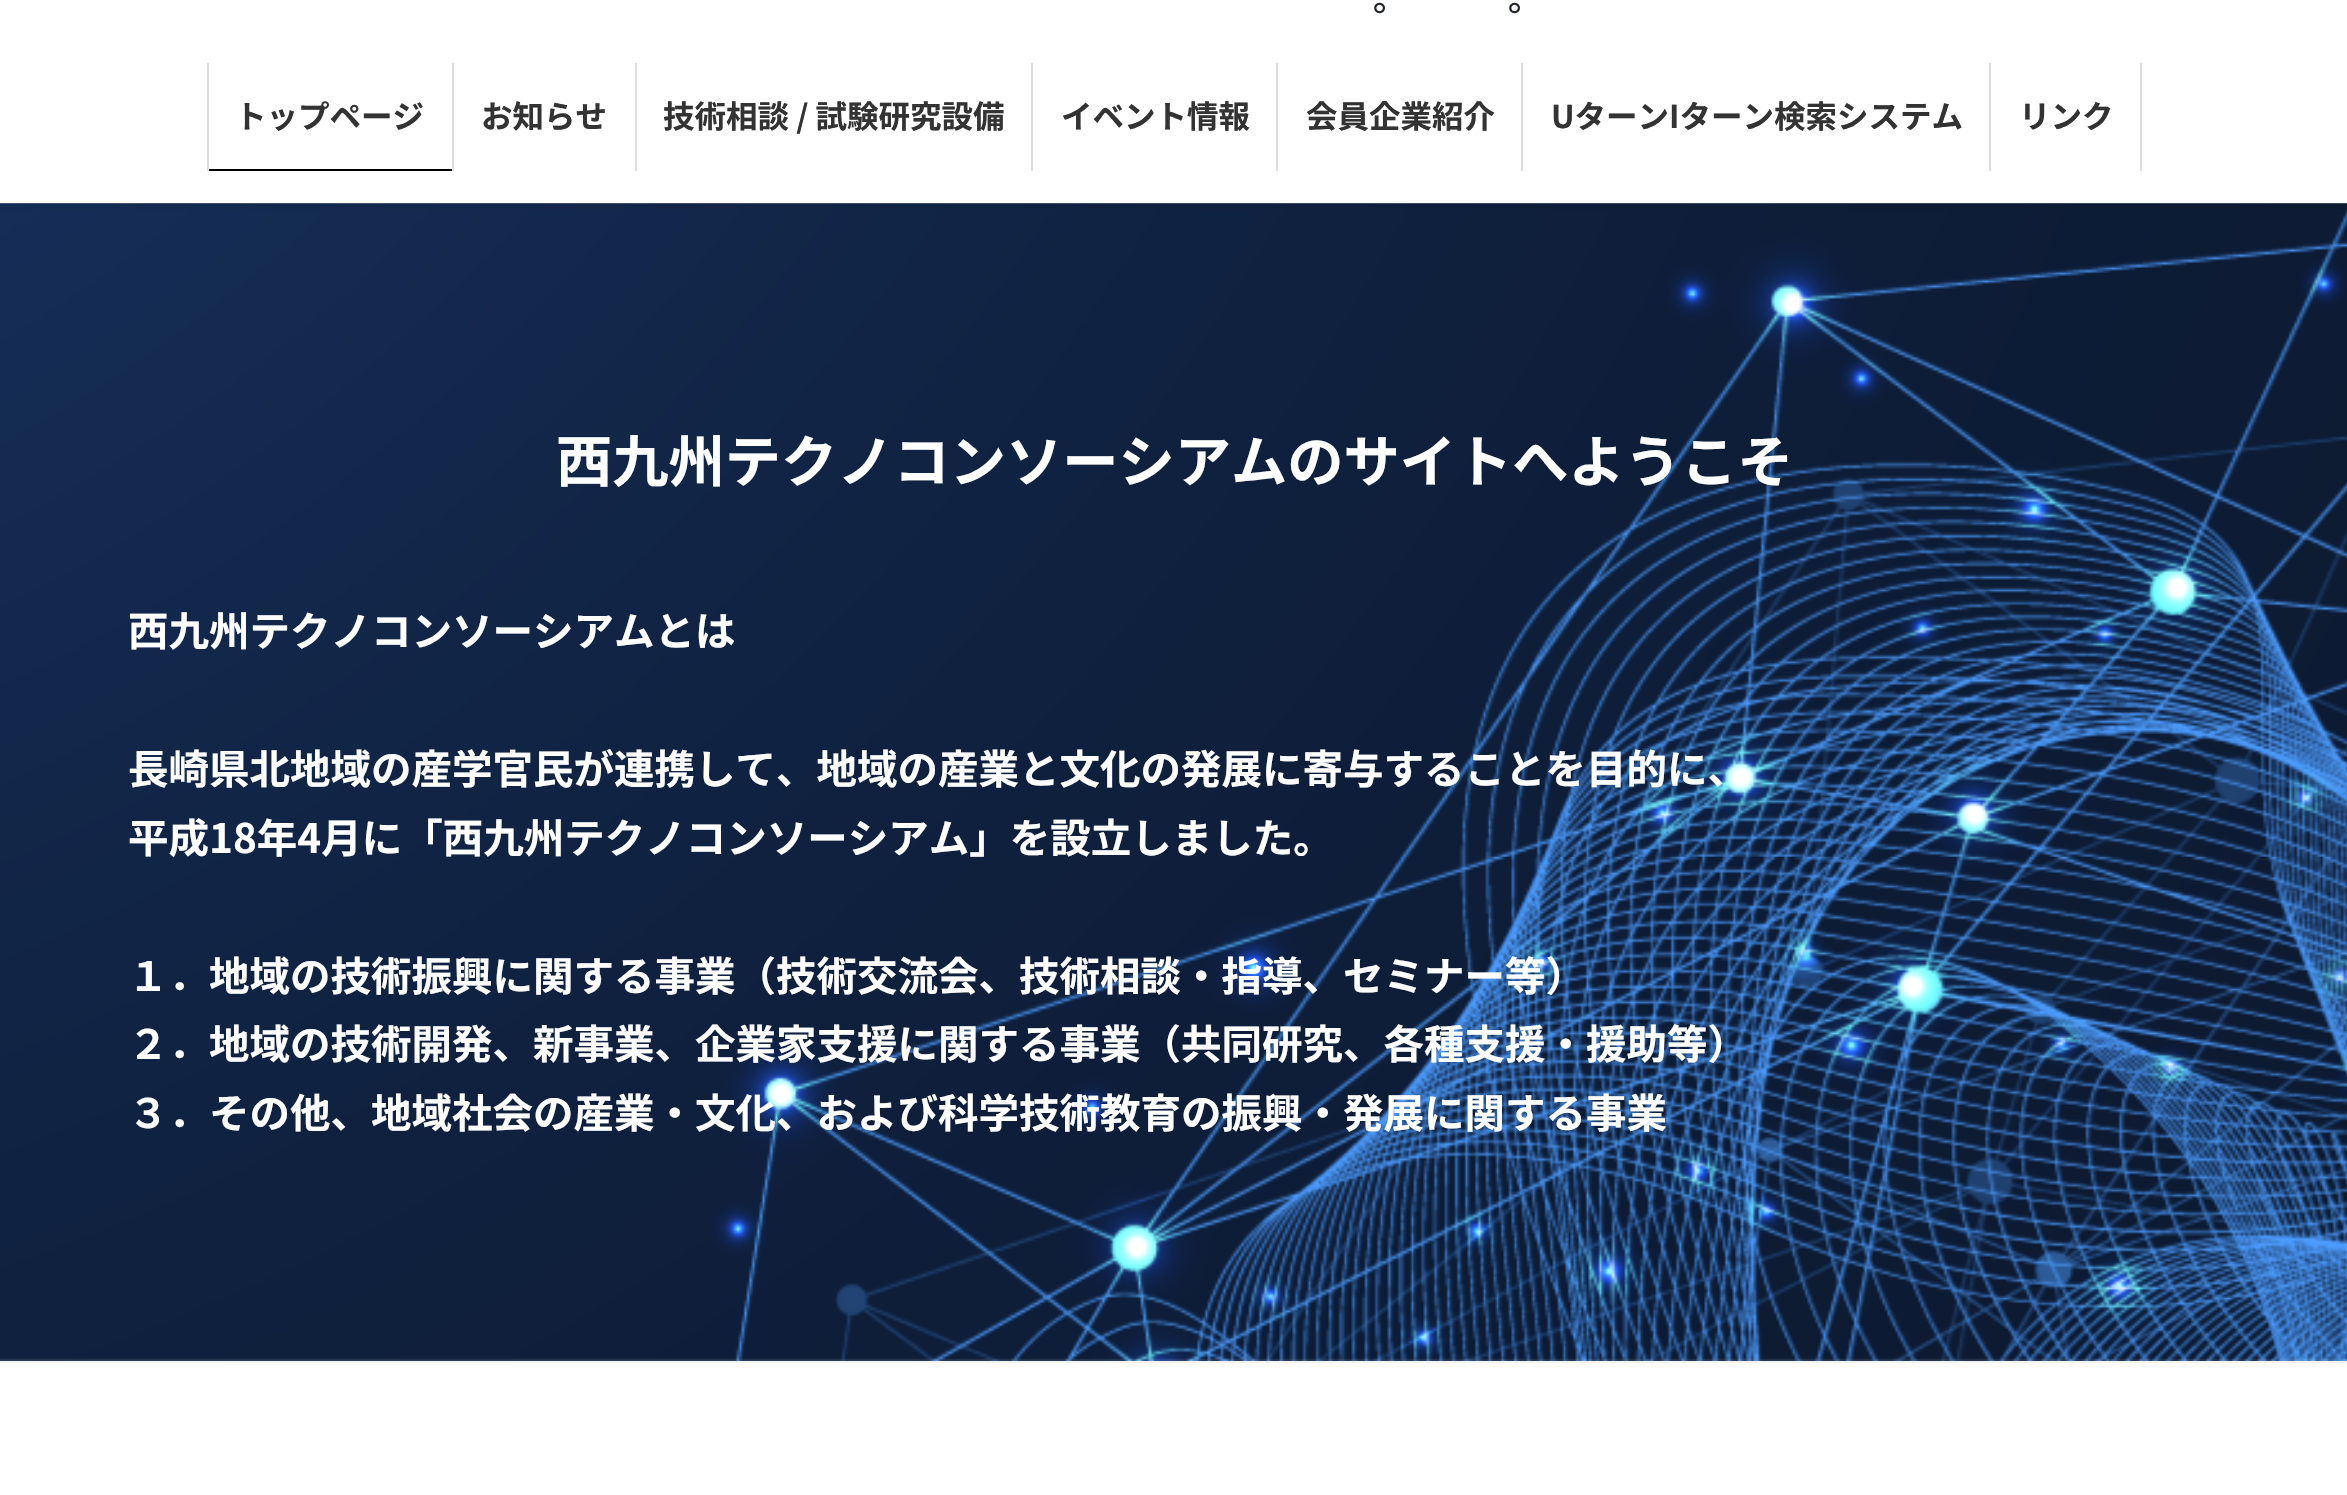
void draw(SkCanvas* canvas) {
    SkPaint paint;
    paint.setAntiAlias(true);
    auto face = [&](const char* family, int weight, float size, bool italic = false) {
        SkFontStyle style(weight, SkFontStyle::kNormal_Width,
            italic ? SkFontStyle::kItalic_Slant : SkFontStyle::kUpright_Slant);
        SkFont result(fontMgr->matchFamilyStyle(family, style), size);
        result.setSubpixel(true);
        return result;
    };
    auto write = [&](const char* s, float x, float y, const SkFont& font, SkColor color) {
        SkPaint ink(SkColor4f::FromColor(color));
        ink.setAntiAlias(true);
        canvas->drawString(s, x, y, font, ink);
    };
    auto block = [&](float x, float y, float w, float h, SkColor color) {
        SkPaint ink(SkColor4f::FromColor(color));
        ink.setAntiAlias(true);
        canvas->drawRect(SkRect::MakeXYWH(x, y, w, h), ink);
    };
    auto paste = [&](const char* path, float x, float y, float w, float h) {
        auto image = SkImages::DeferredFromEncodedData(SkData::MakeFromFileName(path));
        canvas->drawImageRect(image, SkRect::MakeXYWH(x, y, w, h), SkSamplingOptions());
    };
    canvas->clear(SK_ColorWHITE);
    paste("pic1.png", 0, 203, 2347, 1158);
    paint.setColor(SkColorSetARGB(26, 0, 0, 0));
    paint.setMaskFilter(SkMaskFilter::MakeBlur(kNormal_SkBlurStyle, 3.5f));
    canvas->drawRect(SkRect::MakeXYWH(0, -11, 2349, 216), paint);
    paint.setMaskFilter(nullptr);
    block(0, 0, 2347, 203, SK_ColorWHITE);
    auto kFont1 = face("Noto Sans JP", 500, 34);
    write("。", 1373, 11, kFont1, SkColorSetRGB(33, 37, 41));
    write("。", 1508, 11, kFont1, SkColorSetRGB(33, 37, 41));
    block(207, 63, 2, 108, SkColorSetRGB(221, 221, 221));
    auto kFont2 = face("Noto Sans JP", 700, 31.5f);
    write("トップページ", 235, 128, kFont2, SkColorSetRGB(51, 51, 51));
    block(209, 169, 243, 2, SK_ColorBLACK);
    block(452, 63, 2, 108, SkColorSetRGB(221, 221, 221));
    write("お知らせ", 481, 128, kFont2, SkColorSetRGB(51, 51, 51));
    block(635, 63, 2, 108, SkColorSetRGB(221, 221, 221));
    write("技術相談 / 試験研究設備", 663, 128, kFont2, SkColorSetRGB(51, 51, 51));
    block(1031, 63, 2, 108, SkColorSetRGB(221, 221, 221));
    write("イベント情報", 1061, 128, kFont2, SkColorSetRGB(51, 51, 51));
    block(1276, 63, 2, 108, SkColorSetRGB(221, 221, 221));
    write("会員企業紹介", 1306, 128, kFont2, SkColorSetRGB(51, 51, 51));
    block(1521, 63, 2, 108, SkColorSetRGB(221, 221, 221));
    write("UターンIターン検索システム", 1551, 128, kFont2, SkColorSetRGB(51, 51, 51));
    block(2140, 63, 2, 108, SkColorSetRGB(221, 221, 221));
    block(1989, 63, 2, 108, SkColorSetRGB(221, 221, 221));
    write("リンク", 2019, 128, kFont2, SkColorSetRGB(51, 51, 51));
    block(0, 1361, 2347, 2, SkColorSetRGB(242, 242, 242));
    auto kFont3 = face("Noto Sans JP", 700, 56.25f);
    write("西九州テクノコンソーシアムのサイトへようこそ", 556, 482, kFont3, SK_ColorWHITE);
    auto kFont4 = face("Noto Sans JP", 700, 40.5f);
    write("西九州テクノコンソーシアムとは", 128, 646, kFont4, SK_ColorWHITE);
    write("⻑崎県北地域の産学官⺠が連携して、地域の産業と⽂化の発展に寄与することを⽬的に、", 128, 784, kFont4, SK_ColorWHITE);
    write("平成18年4⽉に「⻄九州テクノコンソーシアム」を設⽴しました。", 128, 853, kFont4, SK_ColorWHITE);
    write("１．地域の技術振興に関する事業（技術交流会、技術相談‧指導、セミナー等）", 128, 991, kFont4, SK_ColorWHITE);
    write("２．地域の技術開発、新事業、企業家⽀援に関する事業（共同研究、各種⽀援‧援助等）", 128, 1059, kFont4, SK_ColorWHITE);
    write("３．その他、地域社会の産業‧⽂化、および科学技術教育の振興‧発展に関する事業", 128, 1128, kFont4, SK_ColorWHITE);
}
